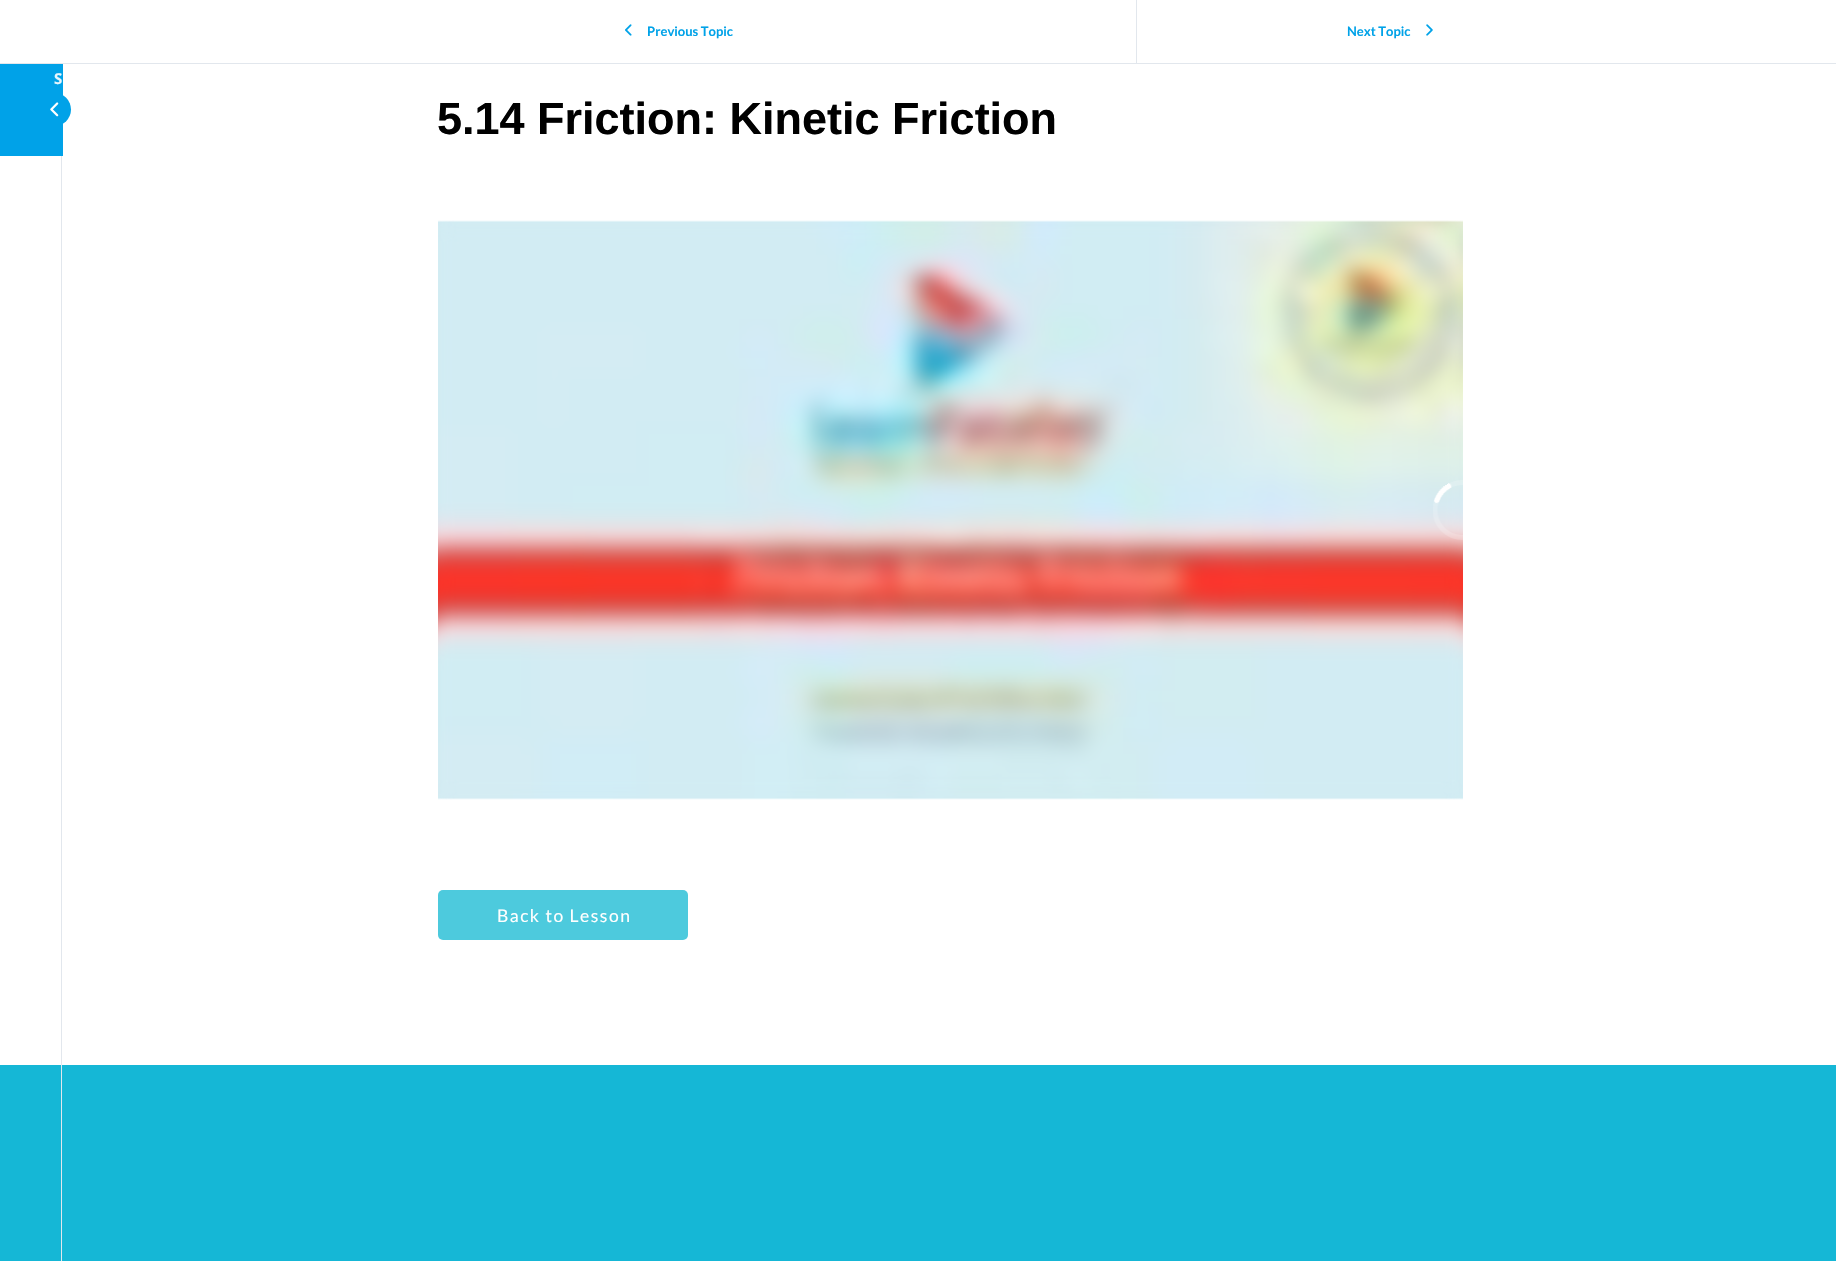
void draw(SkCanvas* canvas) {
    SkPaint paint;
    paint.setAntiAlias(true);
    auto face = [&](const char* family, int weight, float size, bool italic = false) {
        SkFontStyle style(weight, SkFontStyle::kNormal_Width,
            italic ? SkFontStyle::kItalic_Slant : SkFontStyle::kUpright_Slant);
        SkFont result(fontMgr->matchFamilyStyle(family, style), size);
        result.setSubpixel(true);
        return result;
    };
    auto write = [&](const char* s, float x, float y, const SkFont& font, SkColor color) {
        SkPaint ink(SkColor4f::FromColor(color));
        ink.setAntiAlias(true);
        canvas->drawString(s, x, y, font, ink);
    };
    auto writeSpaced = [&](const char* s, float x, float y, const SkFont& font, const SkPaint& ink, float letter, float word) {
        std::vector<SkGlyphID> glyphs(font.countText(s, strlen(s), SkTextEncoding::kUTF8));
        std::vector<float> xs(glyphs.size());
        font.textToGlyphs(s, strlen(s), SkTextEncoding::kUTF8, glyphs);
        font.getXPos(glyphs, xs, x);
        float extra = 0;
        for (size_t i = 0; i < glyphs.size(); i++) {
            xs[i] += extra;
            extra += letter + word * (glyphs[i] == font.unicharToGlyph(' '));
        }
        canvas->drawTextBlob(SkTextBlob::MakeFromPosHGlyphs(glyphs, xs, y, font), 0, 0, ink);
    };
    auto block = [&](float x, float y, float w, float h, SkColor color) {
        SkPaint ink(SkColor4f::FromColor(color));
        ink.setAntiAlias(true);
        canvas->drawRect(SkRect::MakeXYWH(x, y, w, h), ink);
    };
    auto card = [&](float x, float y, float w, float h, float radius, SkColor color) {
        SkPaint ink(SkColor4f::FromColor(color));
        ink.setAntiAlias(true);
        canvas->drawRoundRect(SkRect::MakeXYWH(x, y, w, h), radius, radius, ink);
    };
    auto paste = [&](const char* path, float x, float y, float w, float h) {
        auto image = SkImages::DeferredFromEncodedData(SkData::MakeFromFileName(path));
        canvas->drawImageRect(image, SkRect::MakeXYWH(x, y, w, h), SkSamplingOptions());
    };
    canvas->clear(SkColorSetRGB(21, 183, 214));
    block(0, 64, 1836, 1001, SK_ColorWHITE);
    block(0, 64, 63, 92, SkColorSetRGB(0, 162, 232));
    auto kFont1 = face("Open Sans", 700, 15);
    write("S", 54, 84, kFont1, SkColorSetRGB(231, 246, 253));
    block(61, 156, 1, 1105, SkColorSetRGB(226, 231, 237));
    paint.setColor(SkColorSetRGB(0, 162, 232));
    canvas->drawCircle(54.5f, 109.5f, 16.5f, paint);
    paste("pic1.png", 50, 102, 9, 15);
    block(0, 0, 1836, 63, SK_ColorWHITE);
    block(0, 63, 1836, 1, SkColorSetRGB(226, 231, 237));
    block(1136, 0, 1, 63, SkColorSetRGB(226, 231, 237));
    paste("pic2.png", 625, 24, 7, 12);
    auto kFont2 = face("Lato", 700, 13);
    write("Previous Topic", 647, 36, kFont2, SkColorSetRGB(0, 162, 232));
    write("Next Topic", 1347, 36, kFont2, SkColorSetRGB(0, 162, 232));
    paste("pic3.png", 1426, 24, 7, 12);
    auto kFont3 = face("Arimo", 700, 45);
    write("5.14 Friction: Kinetic Friction", 437, 134, kFont3, SK_ColorBLACK);
    paste("pic4.png", 438, 220, 1025, 580);
    card(438, 890, 250, 50, 5, SkColorSetRGB(77, 202, 221));
    auto kFont4 = face("Lato", 400, 17.5f);
    paint.setColor(SK_ColorWHITE);
    writeSpaced("Back to Lesson", 497, 922, kFont4, paint, 1.5f, 0);
}
